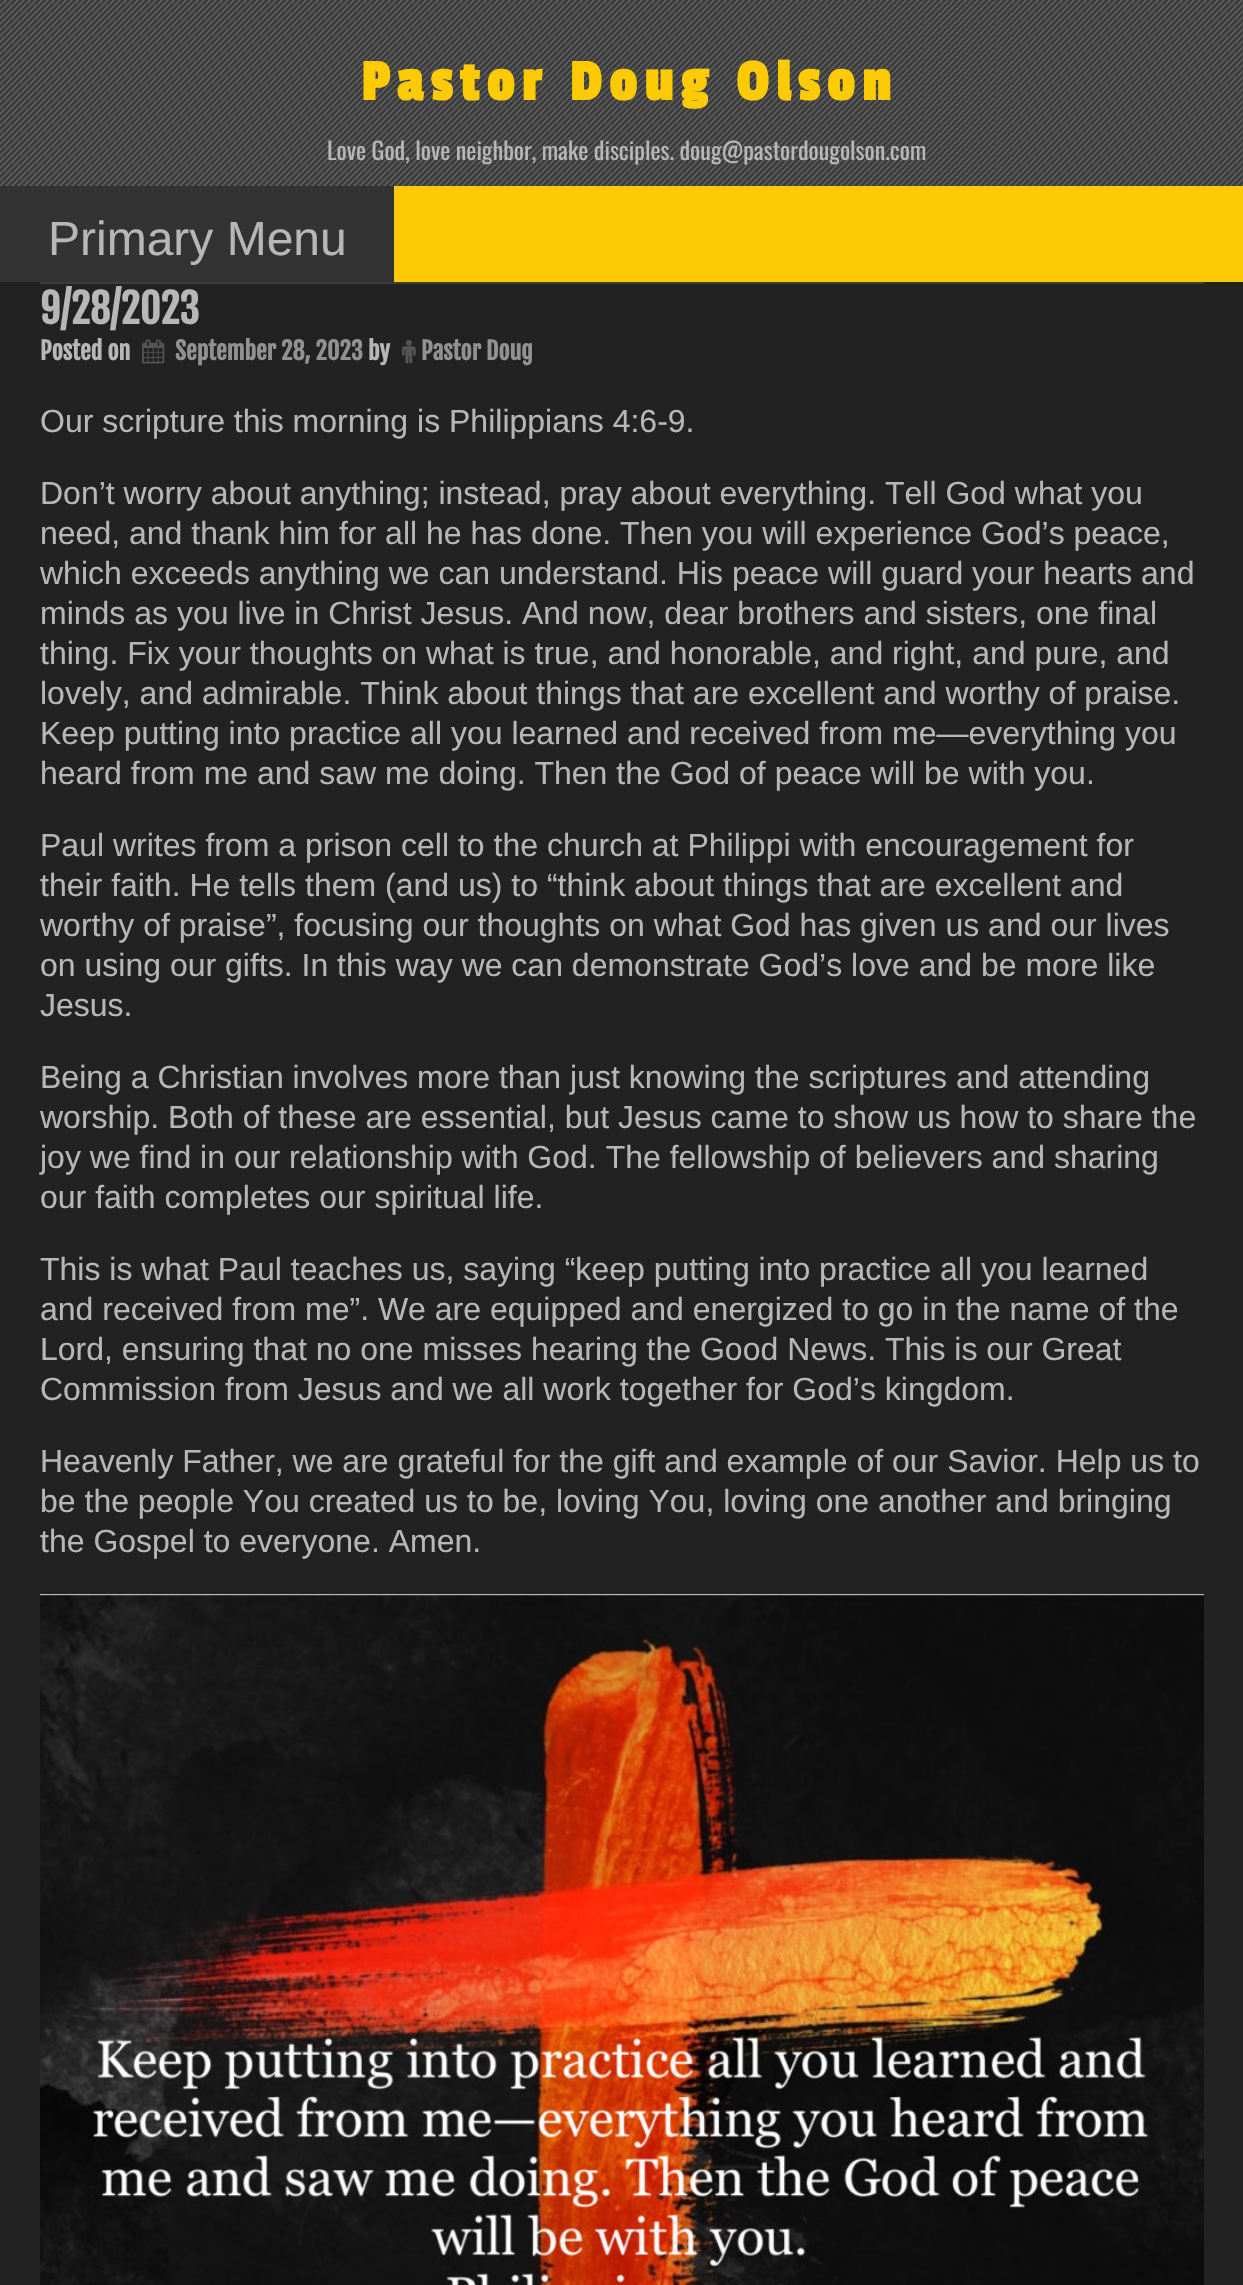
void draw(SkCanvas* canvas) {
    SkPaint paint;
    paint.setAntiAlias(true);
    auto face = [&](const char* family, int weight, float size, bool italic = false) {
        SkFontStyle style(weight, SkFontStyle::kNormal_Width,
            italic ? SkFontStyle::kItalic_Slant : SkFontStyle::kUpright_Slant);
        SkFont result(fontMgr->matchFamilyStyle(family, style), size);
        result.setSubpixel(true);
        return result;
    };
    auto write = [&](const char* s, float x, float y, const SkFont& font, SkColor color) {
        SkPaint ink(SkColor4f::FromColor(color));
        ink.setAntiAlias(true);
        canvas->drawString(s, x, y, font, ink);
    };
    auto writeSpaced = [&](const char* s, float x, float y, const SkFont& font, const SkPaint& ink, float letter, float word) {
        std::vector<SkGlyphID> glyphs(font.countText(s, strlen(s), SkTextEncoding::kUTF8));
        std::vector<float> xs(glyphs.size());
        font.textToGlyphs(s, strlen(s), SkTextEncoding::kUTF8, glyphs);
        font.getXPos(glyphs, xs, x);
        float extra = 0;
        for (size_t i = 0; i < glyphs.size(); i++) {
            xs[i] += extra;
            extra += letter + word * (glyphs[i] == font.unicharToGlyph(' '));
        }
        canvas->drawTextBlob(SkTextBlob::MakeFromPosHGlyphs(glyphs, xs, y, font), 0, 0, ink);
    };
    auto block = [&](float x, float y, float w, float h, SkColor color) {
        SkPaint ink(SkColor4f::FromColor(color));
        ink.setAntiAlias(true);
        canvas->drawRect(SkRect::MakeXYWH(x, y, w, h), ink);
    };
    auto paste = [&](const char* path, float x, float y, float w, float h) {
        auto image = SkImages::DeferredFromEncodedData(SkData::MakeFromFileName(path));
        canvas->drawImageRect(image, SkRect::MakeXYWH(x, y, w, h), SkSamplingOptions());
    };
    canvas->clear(SkColorSetRGB(51, 51, 51));
    paste("pic1.png", 0, 0, 1243, 186);
    auto kFont1 = face("Passion One", 700, 60);
    paint.setColor(SkColorSetRGB(252, 203, 5));
    writeSpaced("Pastor Doug Olson", 361, 100, kFont1, paint, 8, 0);
    auto kFont2 = face("Oswald", 400, 24);
    write("Love God, love neighbor, make disciples. doug@pastordougolson.com", 327, 160, kFont2, SkColorSetRGB(183, 183, 183));
    block(394, 186, 849, 96, SkColorSetRGB(252, 203, 5));
    auto kFont3 = face("Liberation Sans", 400, 48);
    write("Primary Menu", 48, 255, kFont3, SkColorSetRGB(183, 183, 183));
    block(0, 282, 1243, 2003, SkColorSetRGB(34, 34, 34));
    block(40, 282, 1164, 2, SkColorSetRGB(61, 61, 61));
    auto kFont4 = face("Fjalla One", 700, 40);
    write("9/28/2023", 40, 324, kFont4, SkColorSetRGB(183, 183, 183));
    auto kFont5 = face("Fjalla One", 700, 24);
    write("Posted on", 40, 360, kFont5, SkColorSetRGB(183, 183, 183));
    paste("pic2.png", 142, 339, 23, 25);
    write("September 28, 2023", 175, 360, kFont5, SkColorSetRGB(145, 145, 145));
    write("by", 368, 360, kFont5, SkColorSetRGB(183, 183, 183));
    paste("pic3.png", 402, 340, 14, 24);
    write("Pastor Doug", 421, 360, kFont5, SkColorSetRGB(145, 145, 145));
    auto kFont6 = face("Liberation Sans", 400, 32);
    write("Our scripture this morning is Philippians 4:6-9.", 40, 432, kFont6, SkColorSetRGB(183, 183, 183));
    write("Don’t worry about anything; instead, pray about everything. Tell God what you", 40, 504, kFont6, SkColorSetRGB(183, 183, 183));
    write("need, and thank him for all he has done. Then you will experience God’s peace,", 40, 544, kFont6, SkColorSetRGB(183, 183, 183));
    write("which exceeds anything we can understand. His peace will guard your hearts and", 40, 584, kFont6, SkColorSetRGB(183, 183, 183));
    write("minds as you live in Christ Jesus. And now, dear brothers and sisters, one final", 40, 624, kFont6, SkColorSetRGB(183, 183, 183));
    write("thing. Fix your thoughts on what is true, and honorable, and right, and pure, and", 40, 664, kFont6, SkColorSetRGB(183, 183, 183));
    write("lovely, and admirable. Think about things that are excellent and worthy of praise.", 40, 704, kFont6, SkColorSetRGB(183, 183, 183));
    write("Keep putting into practice all you learned and received from me—everything you", 40, 744, kFont6, SkColorSetRGB(183, 183, 183));
    write("heard from me and saw me doing. Then the God of peace will be with you.", 40, 784, kFont6, SkColorSetRGB(183, 183, 183));
    write("Paul writes from a prison cell to the church at Philippi with encouragement for", 40, 856, kFont6, SkColorSetRGB(183, 183, 183));
    write("their faith. He tells them (and us) to “think about things that are excellent and", 40, 896, kFont6, SkColorSetRGB(183, 183, 183));
    write("worthy of praise”, focusing our thoughts on what God has given us and our lives", 40, 936, kFont6, SkColorSetRGB(183, 183, 183));
    write("on using our gifts. In this way we can demonstrate God’s love and be more like", 40, 976, kFont6, SkColorSetRGB(183, 183, 183));
    write("Jesus.", 40, 1016, kFont6, SkColorSetRGB(183, 183, 183));
    write("Being a Christian involves more than just knowing the scriptures and attending", 40, 1088, kFont6, SkColorSetRGB(183, 183, 183));
    write("worship. Both of these are essential, but Jesus came to show us how to share the", 40, 1128, kFont6, SkColorSetRGB(183, 183, 183));
    write("joy we find in our relationship with God. The fellowship of believers and sharing", 40, 1168, kFont6, SkColorSetRGB(183, 183, 183));
    write("our faith completes our spiritual life.", 40, 1208, kFont6, SkColorSetRGB(183, 183, 183));
    write("This is what Paul teaches us, saying “keep putting into practice all you learned", 40, 1280, kFont6, SkColorSetRGB(183, 183, 183));
    write("and received from me”. We are equipped and energized to go in the name of the", 40, 1320, kFont6, SkColorSetRGB(183, 183, 183));
    write("Lord, ensuring that no one misses hearing the Good News. This is our Great", 40, 1360, kFont6, SkColorSetRGB(183, 183, 183));
    write("Commission from Jesus and we all work together for God’s kingdom.", 40, 1400, kFont6, SkColorSetRGB(183, 183, 183));
    write("Heavenly Father, we are grateful for the gift and example of our Savior. Help us to", 40, 1472, kFont6, SkColorSetRGB(183, 183, 183));
    write("be the people You created us to be, loving You, loving one another and bringing", 40, 1512, kFont6, SkColorSetRGB(183, 183, 183));
    write("the Gospel to everyone. Amen.", 40, 1552, kFont6, SkColorSetRGB(183, 183, 183));
    paste("pic4.png", 40, 1594, 1164, 691);
}
